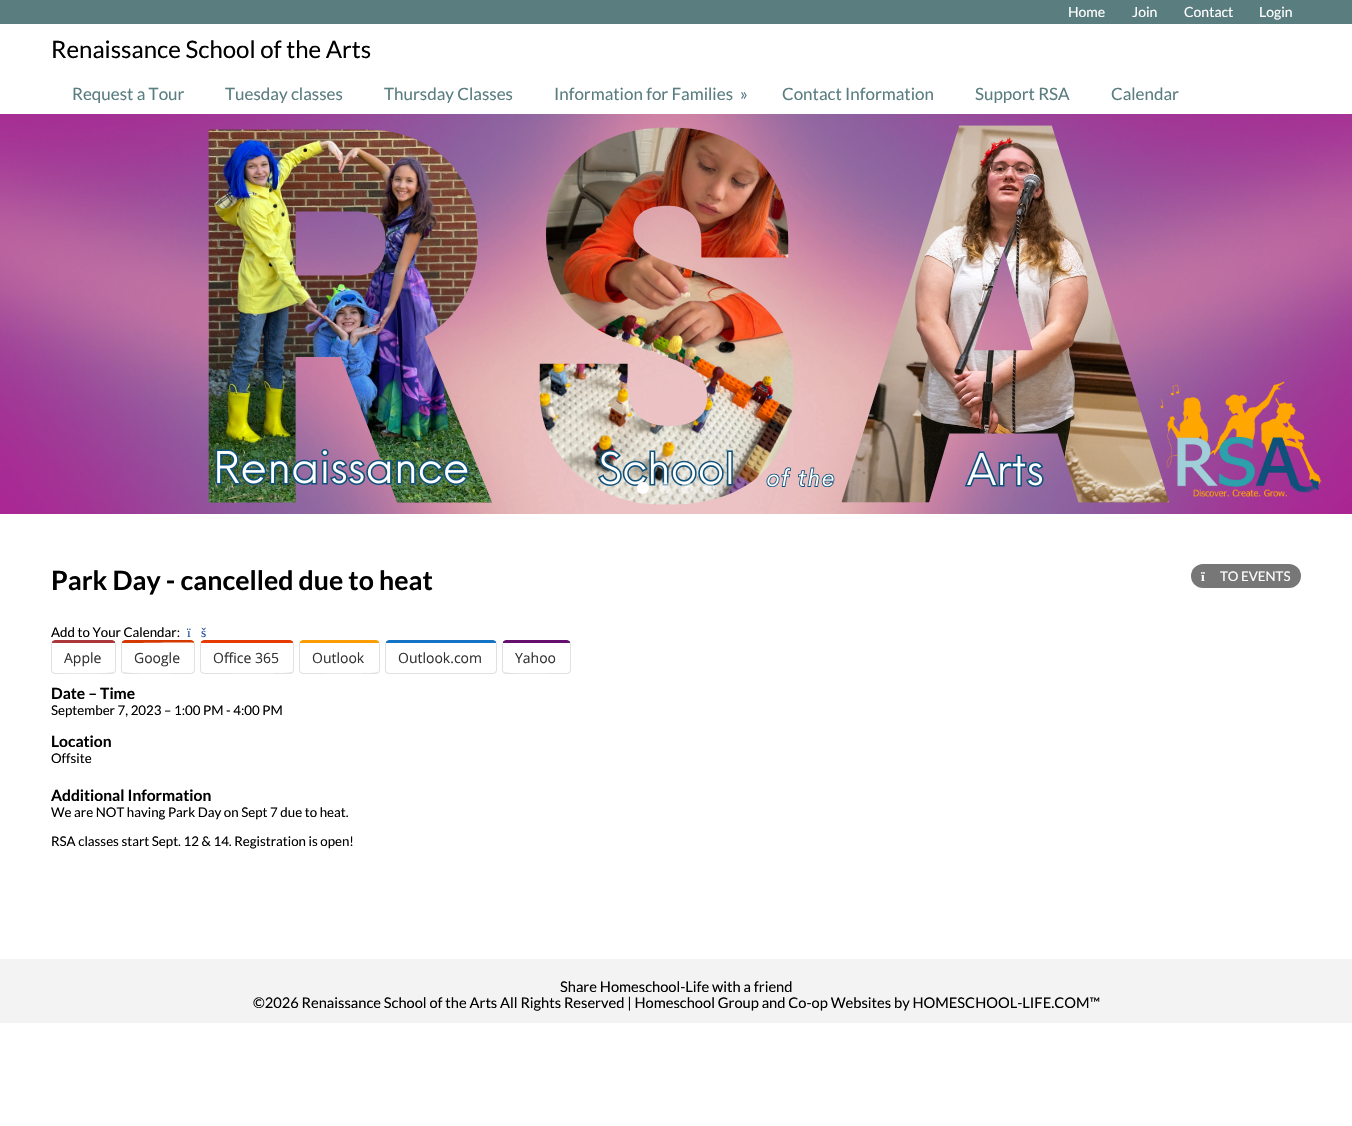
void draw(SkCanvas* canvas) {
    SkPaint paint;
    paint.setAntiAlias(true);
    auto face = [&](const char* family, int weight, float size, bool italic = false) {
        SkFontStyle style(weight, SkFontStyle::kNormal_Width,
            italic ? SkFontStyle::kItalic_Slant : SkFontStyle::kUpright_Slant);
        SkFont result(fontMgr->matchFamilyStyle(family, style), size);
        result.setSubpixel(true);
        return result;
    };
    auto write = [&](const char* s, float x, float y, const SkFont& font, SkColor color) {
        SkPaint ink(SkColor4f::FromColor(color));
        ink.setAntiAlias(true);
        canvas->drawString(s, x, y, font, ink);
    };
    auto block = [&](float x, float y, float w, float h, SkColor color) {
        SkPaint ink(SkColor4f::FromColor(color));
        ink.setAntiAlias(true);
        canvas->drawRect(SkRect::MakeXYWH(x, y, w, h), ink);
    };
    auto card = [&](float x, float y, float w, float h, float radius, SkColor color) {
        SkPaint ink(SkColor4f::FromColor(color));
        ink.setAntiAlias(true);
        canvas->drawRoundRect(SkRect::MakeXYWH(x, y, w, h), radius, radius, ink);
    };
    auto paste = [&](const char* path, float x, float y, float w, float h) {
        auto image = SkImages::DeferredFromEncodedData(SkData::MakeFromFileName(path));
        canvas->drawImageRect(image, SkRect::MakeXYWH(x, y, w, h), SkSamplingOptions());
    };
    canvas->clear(SK_ColorWHITE);
    block(0, 0, 1352, 24, SkColorSetRGB(90, 125, 128));
    auto kFont1 = face("Lato", 400, 14);
    write("Home", 1068, 17, kFont1, SK_ColorWHITE);
    write("Join", 1132, 17, kFont1, SK_ColorWHITE);
    write("Contact", 1184, 17, kFont1, SK_ColorWHITE);
    write("Login", 1259, 17, kFont1, SK_ColorWHITE);
    auto kFont2 = face("Lato", 400, 24);
    write("Renaissance School of the Arts", 51, 58, kFont2, SK_ColorBLACK);
    auto kFont3 = face("Lato", 400, 17);
    write("Request a Tour", 72, 100, kFont3, SkColorSetRGB(90, 125, 128));
    write("Tuesday classes", 225, 100, kFont3, SkColorSetRGB(90, 125, 128));
    write("Thursday Classes", 384, 100, kFont3, SkColorSetRGB(90, 125, 128));
    write("Information for Families", 554, 100, kFont3, SkColorSetRGB(90, 125, 128));
    write("»", 740, 100, kFont3, SkColorSetRGB(90, 125, 128));
    write("Contact Information", 782, 100, kFont3, SkColorSetRGB(90, 125, 128));
    write("Support RSA", 975, 100, kFont3, SkColorSetRGB(90, 125, 128));
    write("Calendar", 1111, 100, kFont3, SkColorSetRGB(90, 125, 128));
    paste("pic1.png", 0, 114, 1352, 400);
    paint.setColor(SK_ColorWHITE);
    canvas->drawCircle(643, 488, 6, paint);
    paint.setColor(SkColorSetARGB(128, 255, 255, 255));
    canvas->drawCircle(665, 488, 6, paint);
    canvas->drawCircle(687, 488, 6, paint);
    canvas->drawCircle(709, 488, 6, paint);
    auto kFont4 = face("Lato", 700, 26.7f);
    write("Park Day - cancelled due to heat", 51, 590, kFont4, SK_ColorBLACK);
    card(1191, 564, 110, 24, 12, SkColorSetRGB(119, 119, 119));
    auto kFont5 = face("Liberation Serif", 700, 13.3f);
    write("ï", 1201, 581, kFont5, SK_ColorWHITE);
    auto kFont6 = face("Lato", 400, 13.3f);
    write("TO EVENTS", 1220, 581, kFont6, SK_ColorWHITE);
    write("Add to Your Calendar:", 51, 637, kFont6, SK_ColorBLACK);
    auto kFont7 = face("Liberation Serif", 400, 13.3f);
    write("ï", 187, 637, kFont7, SkColorSetRGB(29, 81, 157));
    write("š", 201, 637, kFont7, SkColorSetRGB(29, 81, 157));
    paint.setColor(SkColorSetRGB(171, 55, 58));
    canvas->drawPath(SkPathBuilder().moveTo(55, 640).cubicTo(54, 640, 52, 641, 52, 642).lineTo(52, 643).lineTo(55, 643).lineTo(113, 643).lineTo(115, 643).lineTo(115, 642).cubicTo(115, 641, 113, 640, 112, 640).close().detach(), paint);
    paint.setColor(SkColorSetRGB(225, 225, 225));
    canvas->drawPath(SkPathBuilder().moveTo(116, 670).lineTo(116, 644).cubicTo(116, 643.5f, 116, 642.5f, 115.5f, 642).lineTo(115, 643.5f).lineTo(115, 670.5f).lineTo(114, 672).lineTo(115, 673).cubicTo(115.5f, 672, 116, 671, 116, 670).close().detach(), paint);
    canvas->drawPath(SkPathBuilder().moveTo(55, 674).lineTo(112, 674).lineTo(115, 673).lineTo(114, 672).cubicTo(112, 674, 60, 673, 55, 673).lineTo(53, 672).lineTo(52, 673).close().detach(), paint);
    canvas->drawPath(SkPathBuilder().moveTo(51, 644).lineTo(51, 670).cubicTo(51, 671, 51.5f, 672, 52, 673).lineTo(53, 672).lineTo(52, 670.5f).lineTo(52, 643.5f).lineTo(51.5f, 642).close().detach(), paint);
    auto kFont8 = face("Open Sans", 400, 14);
    write("Apple", 64, 663, kFont8, SkColorSetRGB(51, 51, 51));
    paint.setColor(SkColorSetRGB(213, 57, 0));
    canvas->drawPath(SkPathBuilder().moveTo(125, 640).cubicTo(124, 640, 122, 641, 122, 642).lineTo(122, 643).lineTo(125, 643).lineTo(136, 643).cubicTo(142, 643, 193, 642, 194, 643).lineTo(194, 642).cubicTo(194, 641, 192, 640, 191, 640).close().detach(), paint);
    paint.setColor(SkColorSetRGB(225, 225, 225));
    canvas->drawPath(SkPathBuilder().moveTo(195, 670).lineTo(195, 644).cubicTo(195, 643.5f, 195, 642.5f, 194.5f, 642).lineTo(194, 643.5f).lineTo(194, 670.5f).lineTo(193, 672).lineTo(194, 673).cubicTo(194.5f, 672, 195, 671, 195, 670).close().detach(), paint);
    canvas->drawPath(SkPathBuilder().moveTo(125, 674).lineTo(191, 674).lineTo(194, 673).lineTo(193, 672).lineTo(191, 673).lineTo(180, 673).cubicTo(174, 673, 125, 674, 123, 672).lineTo(122, 673).close().detach(), paint);
    canvas->drawPath(SkPathBuilder().moveTo(121, 644).lineTo(121, 670).cubicTo(121, 671, 121.5f, 672, 122, 673).lineTo(123, 672).lineTo(122, 670.5f).lineTo(122, 643.5f).lineTo(121.5f, 642).close().detach(), paint);
    write("Google", 134, 663, kFont8, SkColorSetRGB(51, 51, 51));
    paint.setColor(SkColorSetRGB(229, 58, 0));
    canvas->drawPath(SkPathBuilder().moveTo(204, 640).cubicTo(203, 640, 201, 641, 201, 642).lineTo(201, 643).lineTo(204, 643).lineTo(290, 643).lineTo(293, 643).lineTo(293, 642).cubicTo(293, 641, 291, 640, 290, 640).close().detach(), paint);
    paint.setColor(SkColorSetRGB(225, 225, 225));
    canvas->drawPath(SkPathBuilder().moveTo(294, 670).lineTo(294, 644).cubicTo(294, 643.5f, 294, 642.5f, 293.5f, 642).lineTo(293, 643.5f).lineTo(293, 670.5f).lineTo(292, 672).lineTo(293, 673).cubicTo(293.5f, 672, 294, 671, 294, 670).close().detach(), paint);
    canvas->drawPath(SkPathBuilder().moveTo(204, 674).lineTo(290, 674).lineTo(293, 673).lineTo(292, 672).cubicTo(290, 674, 226, 673, 218, 673).lineTo(204, 673).lineTo(202, 672).lineTo(201, 673).close().detach(), paint);
    canvas->drawPath(SkPathBuilder().moveTo(200, 644).lineTo(200, 670).cubicTo(200, 671, 200.5f, 672, 201, 673).lineTo(202, 672).lineTo(201, 670.5f).lineTo(201, 643.5f).lineTo(200.5f, 642).close().detach(), paint);
    write("Office 365", 213, 663, kFont8, SkColorSetRGB(51, 51, 51));
    paint.setColor(SkColorSetRGB(250, 157, 0));
    canvas->drawPath(SkPathBuilder().moveTo(303, 640).cubicTo(302, 640, 300, 641, 300, 642).lineTo(300, 643).lineTo(302, 643).lineTo(364, 643).lineTo(376, 643).lineTo(379, 643).lineTo(379, 642).cubicTo(379, 641, 377, 640, 376, 640).close().detach(), paint);
    paint.setColor(SkColorSetRGB(225, 225, 225));
    canvas->drawPath(SkPathBuilder().moveTo(380, 670).lineTo(380, 644).cubicTo(380, 643.5f, 380, 642.5f, 379.5f, 642).lineTo(379, 643.5f).lineTo(379, 670.5f).lineTo(378, 672).lineTo(379, 673).cubicTo(379.5f, 672, 380, 671, 380, 670).close().detach(), paint);
    canvas->drawPath(SkPathBuilder().moveTo(303, 674).lineTo(376, 674).lineTo(379, 673).lineTo(378, 672).cubicTo(376, 674, 322, 673, 315, 673).lineTo(303, 673).lineTo(301, 672).lineTo(300, 673).close().detach(), paint);
    canvas->drawPath(SkPathBuilder().moveTo(299, 644).lineTo(299, 670).cubicTo(299, 671, 299.5f, 672, 300, 673).lineTo(301, 672).lineTo(300, 670.5f).lineTo(300, 643.5f).lineTo(299.5f, 642).close().detach(), paint);
    write("Outlook", 312, 663, kFont8, SkColorSetRGB(51, 51, 51));
    paint.setColor(SkColorSetRGB(20, 115, 197));
    canvas->drawPath(SkPathBuilder().moveTo(389, 640).cubicTo(388, 640, 386, 641, 386, 642).lineTo(386, 643).lineTo(389, 643).lineTo(495, 643).lineTo(496, 643).lineTo(496, 642).cubicTo(496, 641, 494, 640, 493, 640).close().detach(), paint);
    paint.setColor(SkColorSetRGB(225, 225, 225));
    canvas->drawPath(SkPathBuilder().moveTo(497, 670).lineTo(497, 644).cubicTo(497, 643.5f, 497, 642.5f, 496.5f, 642).lineTo(496, 643.5f).lineTo(496, 670.5f).lineTo(495, 672).lineTo(496, 673).cubicTo(496.5f, 672, 497, 671, 497, 670).close().detach(), paint);
    canvas->drawPath(SkPathBuilder().moveTo(389, 674).lineTo(493, 674).lineTo(496, 673).lineTo(495, 672).lineTo(493, 673).lineTo(389, 673).lineTo(387, 672).lineTo(386, 673).close().detach(), paint);
    canvas->drawPath(SkPathBuilder().moveTo(385, 644).lineTo(385, 670).cubicTo(385, 671, 385.5f, 672, 386, 673).lineTo(387, 672).lineTo(386, 670.5f).lineTo(386, 643.5f).lineTo(385.5f, 642).close().detach(), paint);
    write("Outlook.com", 398, 663, kFont8, SkColorSetRGB(51, 51, 51));
    paint.setColor(SkColorSetRGB(101, 16, 110));
    canvas->drawPath(SkPathBuilder().moveTo(506, 640).cubicTo(505, 640, 503, 641, 503, 642).lineTo(503, 643).lineTo(506, 643).lineTo(567, 643).lineTo(570, 643).lineTo(570, 642).cubicTo(570, 641, 568, 640, 567, 640).close().detach(), paint);
    paint.setColor(SkColorSetRGB(225, 225, 225));
    canvas->drawPath(SkPathBuilder().moveTo(571, 670).lineTo(571, 644).cubicTo(571, 643.5f, 571, 642.5f, 570.5f, 642).lineTo(570, 643.5f).lineTo(570, 670.5f).lineTo(569, 672).lineTo(570, 673).cubicTo(570.5f, 672, 571, 671, 571, 670).close().detach(), paint);
    canvas->drawPath(SkPathBuilder().moveTo(506, 674).lineTo(567, 674).lineTo(570, 673).lineTo(569, 672).lineTo(567, 673).lineTo(557, 673).cubicTo(551, 673, 506, 674, 504, 672).lineTo(503, 673).close().detach(), paint);
    canvas->drawPath(SkPathBuilder().moveTo(502, 644).lineTo(502, 670).cubicTo(502, 671, 502.5f, 672, 503, 673).lineTo(504, 672).lineTo(503, 670.5f).lineTo(503, 643.5f).lineTo(502.5f, 642).close().detach(), paint);
    write("Yahoo", 515, 663, kFont8, SkColorSetRGB(51, 51, 51));
    auto kFont9 = face("Lato", 700, 15.6f);
    write("Date – Time", 51, 699, kFont9, SK_ColorBLACK);
    write("September 7, 2023 – 1:00 PM - 4:00 PM", 51, 715, kFont6, SK_ColorBLACK);
    write("Location", 51, 747, kFont9, SK_ColorBLACK);
    write("Offsite", 51, 763, kFont6, SK_ColorBLACK);
    write("Additional Information", 51, 801, kFont9, SK_ColorBLACK);
    write("We are NOT having Park Day on Sept 7 due to heat.", 51, 817, kFont6, SK_ColorBLACK);
    write("RSA classes start Sept. 12 & 14. Registration is open!", 51, 846, kFont6, SK_ColorBLACK);
    block(0, 959, 1352, 64, SkColorSetRGB(243, 243, 243));
    auto kFont10 = face("Lato", 400, 14.67f);
    write("Share Homeschool-Life with a friend", 560, 992, kFont10, SK_ColorBLACK);
    write("©2026 Renaissance School of the Arts All Rights Reserved | Homeschool Group and Co-op Websites by HOMESCHOOL-LIFE.COM™", 253, 1008, kFont10, SK_ColorBLACK);
}
